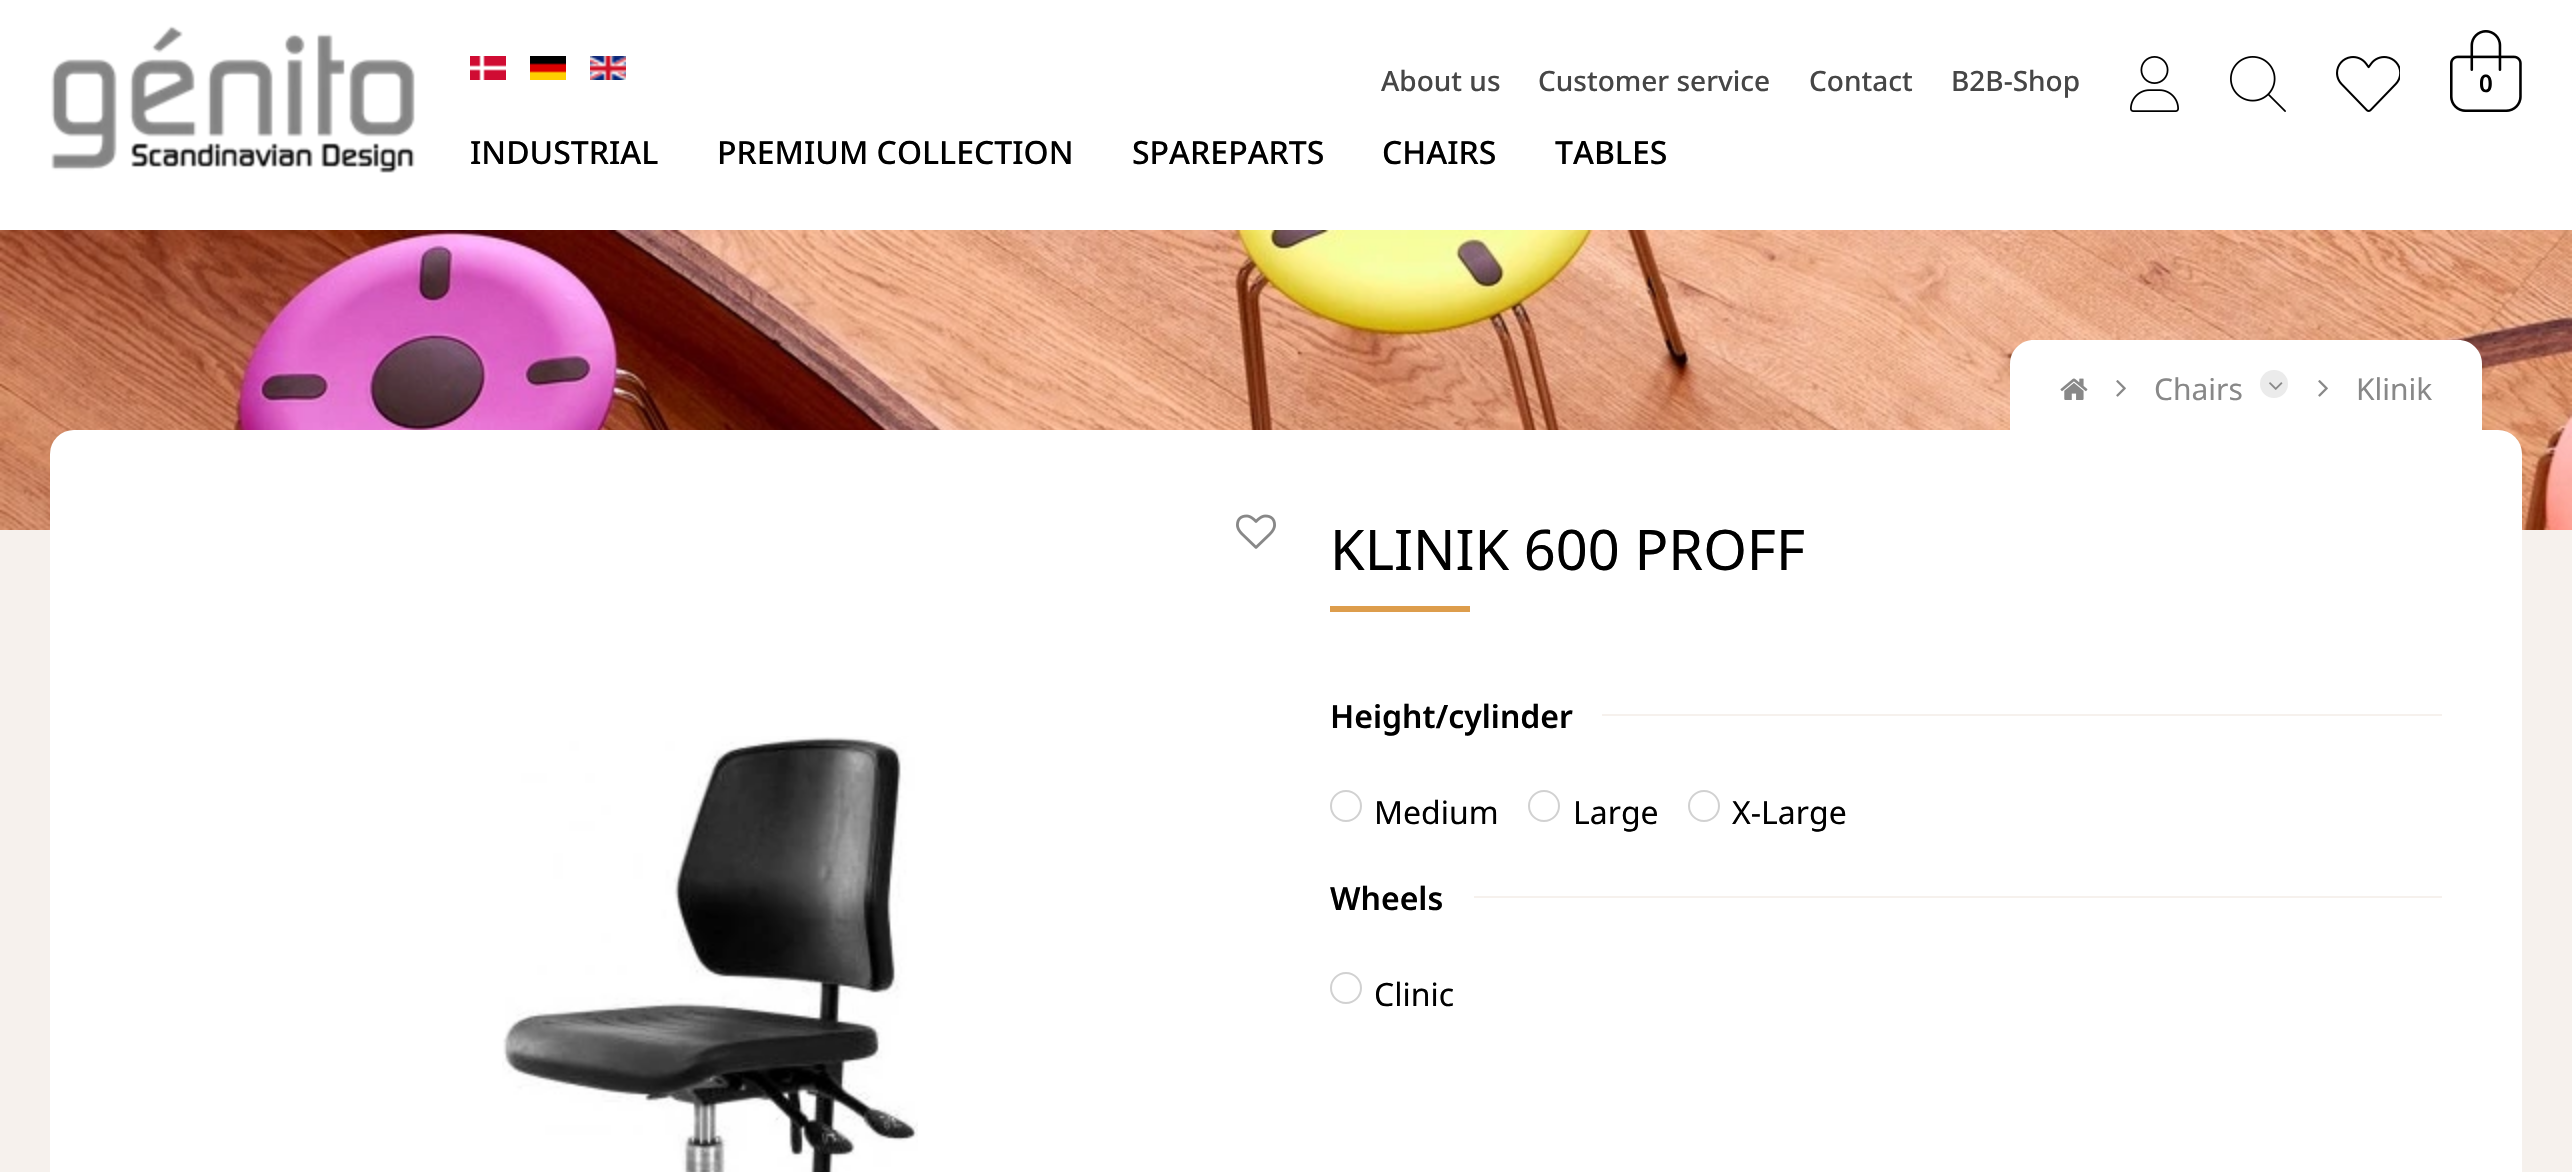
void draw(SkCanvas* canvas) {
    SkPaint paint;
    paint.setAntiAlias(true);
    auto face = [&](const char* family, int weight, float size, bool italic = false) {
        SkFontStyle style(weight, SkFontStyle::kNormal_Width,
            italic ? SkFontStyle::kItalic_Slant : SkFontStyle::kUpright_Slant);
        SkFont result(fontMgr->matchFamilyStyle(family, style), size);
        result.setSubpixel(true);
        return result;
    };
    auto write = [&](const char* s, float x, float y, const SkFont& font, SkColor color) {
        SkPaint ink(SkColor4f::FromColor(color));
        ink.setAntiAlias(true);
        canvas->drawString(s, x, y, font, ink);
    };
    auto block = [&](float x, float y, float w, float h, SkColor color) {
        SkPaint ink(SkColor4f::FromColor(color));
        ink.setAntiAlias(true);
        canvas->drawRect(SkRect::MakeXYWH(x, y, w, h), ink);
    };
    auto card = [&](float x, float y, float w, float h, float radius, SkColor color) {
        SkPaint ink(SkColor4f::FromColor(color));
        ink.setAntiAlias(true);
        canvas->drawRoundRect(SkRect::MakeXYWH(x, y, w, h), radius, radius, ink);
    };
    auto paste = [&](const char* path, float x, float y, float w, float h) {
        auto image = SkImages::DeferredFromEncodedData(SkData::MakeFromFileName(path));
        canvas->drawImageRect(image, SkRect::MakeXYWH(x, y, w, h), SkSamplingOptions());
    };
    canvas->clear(SkColorSetRGB(246, 241, 237));
    block(0, 0, 2572, 230, SK_ColorWHITE);
    paste("pic1.png", 51, 26, 364, 147);
    paste("pic2.png", 470, 56, 36, 24);
    paste("pic3.png", 530, 56, 36, 24);
    paste("pic4.png", 590, 56, 36, 24);
    auto kFont1 = face("Noto Sans", 500, 28);
    write("About us", 1381, 91, kFont1, SkColorSetRGB(70, 70, 70));
    write("Customer service", 1538, 91, kFont1, SkColorSetRGB(70, 70, 70));
    write("Contact", 1809, 91, kFont1, SkColorSetRGB(70, 70, 70));
    write("B2B-Shop", 1951, 91, kFont1, SkColorSetRGB(70, 70, 70));
    paste("pic5.png", 2130, 56, 49, 56);
    paste("pic6.png", 2230, 56, 56, 56);
    paste("pic7.png", 2336, 56, 64, 56);
    paste("pic8.png", 2450, 30, 72, 82);
    auto kFont2 = face("Noto Sans", 600, 24);
    write("0", 2479, 92, kFont2, SK_ColorBLACK);
    auto kFont3 = face("Noto Sans", 500, 32);
    write("INDUSTRIAL", 470, 164, kFont3, SK_ColorBLACK);
    write("PREMIUM COLLECTION", 717, 164, kFont3, SK_ColorBLACK);
    write("SPAREPARTS", 1132, 164, kFont3, SK_ColorBLACK);
    write("CHAIRS", 1382, 164, kFont3, SK_ColorBLACK);
    write("TABLES", 1555, 164, kFont3, SK_ColorBLACK);
    paste("pic9.png", 0, 230, 2572, 300);
    paint.setColor(SK_ColorWHITE);
    canvas->drawPath(SkPathBuilder().moveTo(2034, 340).lineTo(2458, 340).cubicTo(2471.5f, 340, 2482, 350.5f, 2482, 364).lineTo(2482, 430).lineTo(2010, 430).lineTo(2010, 364).cubicTo(2010, 350.5f, 2020.5f, 340, 2034, 340).close().detach(), paint);
    paste("pic10.png", 2060, 378, 28, 22);
    paste("pic11.png", 2116, 380, 10, 17);
    auto kFont4 = face("Noto Sans", 400, 30);
    write("Chairs", 2154, 400, kFont4, SkColorSetRGB(136, 136, 136));
    paint.setColor(SkColorSetRGB(235, 235, 235));
    canvas->drawCircle(2274, 384, 14, paint);
    paste("pic12.png", 2269, 382, 14, 8);
    paste("pic11.png", 2318, 380, 10, 17);
    write("Klinik", 2356, 400, kFont4, SkColorSetRGB(136, 136, 136));
    card(50, 430, 2472, 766, 24, SK_ColorWHITE);
    paste("pic13.png", 1236, 514, 40, 35);
    paste("pic14.png", 502, 736, 416, 436);
    auto kFont5 = face("Noto Sans", 400, 56);
    write("KLINIK 600 PROFF", 1330, 570, kFont5, SK_ColorBLACK);
    block(1330, 606, 140, 6, SkColorSetRGB(221, 157, 76));
    auto kFont6 = face("Noto Sans", 600, 32);
    write("Height/cylinder", 1330, 728, kFont6, SK_ColorBLACK);
    block(1602, 714, 840, 2, SkColorSetRGB(246, 241, 237));
    paint.setStyle(SkPaint::kStroke_Style);
    paint.setStrokeWidth(2);
    paint.setColor(SkColorSetRGB(209, 209, 209));
    canvas->drawCircle(1346, 806, 15, paint);
    auto kFont7 = face("Noto Sans", 400, 32);
    write("Medium", 1374, 824, kFont7, SK_ColorBLACK);
    canvas->drawCircle(1544, 806, 15, paint);
    write("Large", 1573, 824, kFont7, SK_ColorBLACK);
    canvas->drawCircle(1704, 806, 15, paint);
    write("X-Large", 1732, 824, kFont7, SK_ColorBLACK);
    write("Wheels", 1330, 910, kFont6, SK_ColorBLACK);
    block(1474, 896, 968, 2, SkColorSetRGB(246, 241, 237));
    canvas->drawCircle(1346, 988, 15, paint);
    write("Clinic", 1374, 1006, kFont7, SK_ColorBLACK);
}
